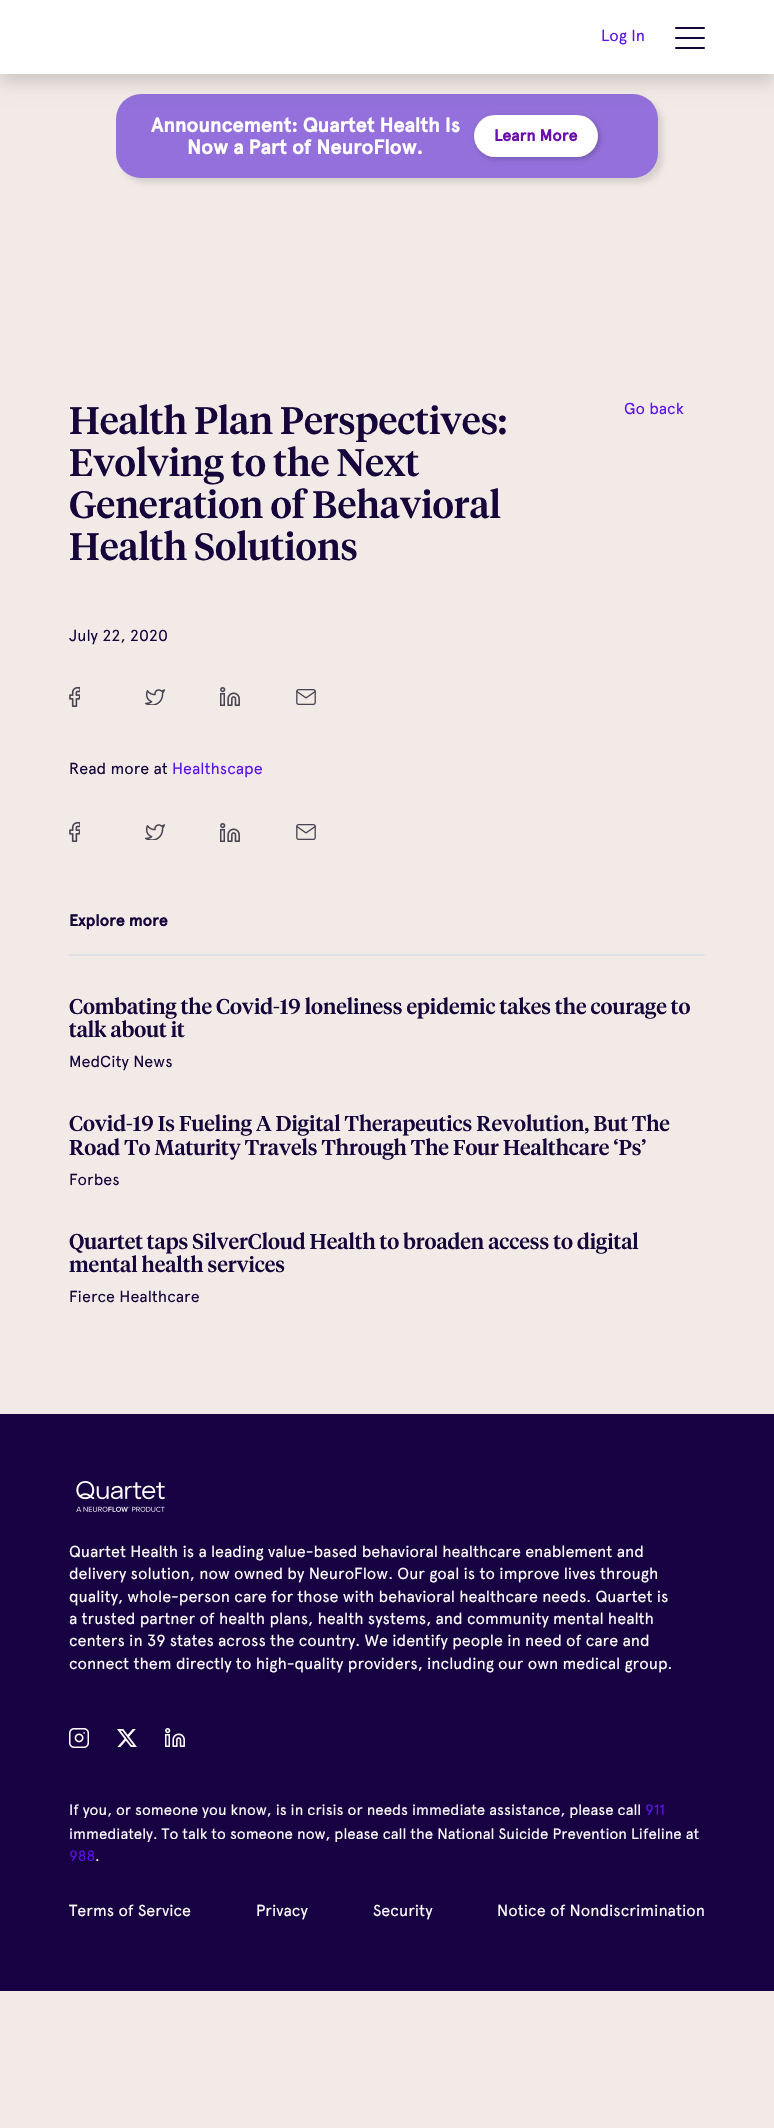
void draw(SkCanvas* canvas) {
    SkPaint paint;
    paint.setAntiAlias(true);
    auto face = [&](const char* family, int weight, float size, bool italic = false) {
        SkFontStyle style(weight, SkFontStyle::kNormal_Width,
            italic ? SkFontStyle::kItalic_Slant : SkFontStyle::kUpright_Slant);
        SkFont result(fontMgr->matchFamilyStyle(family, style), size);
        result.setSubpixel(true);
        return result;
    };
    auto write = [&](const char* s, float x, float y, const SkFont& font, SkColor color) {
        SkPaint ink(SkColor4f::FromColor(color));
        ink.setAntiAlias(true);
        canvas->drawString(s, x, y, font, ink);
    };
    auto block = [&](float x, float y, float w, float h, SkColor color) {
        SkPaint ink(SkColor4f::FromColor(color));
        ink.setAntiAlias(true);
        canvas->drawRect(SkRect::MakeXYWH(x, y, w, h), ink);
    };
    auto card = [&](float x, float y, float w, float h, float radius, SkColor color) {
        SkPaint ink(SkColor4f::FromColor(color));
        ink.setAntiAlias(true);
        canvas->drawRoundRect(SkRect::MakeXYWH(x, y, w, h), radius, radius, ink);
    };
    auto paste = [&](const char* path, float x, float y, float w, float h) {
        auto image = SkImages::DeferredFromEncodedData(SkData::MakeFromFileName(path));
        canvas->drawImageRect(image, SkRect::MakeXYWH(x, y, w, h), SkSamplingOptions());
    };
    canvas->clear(SkColorSetRGB(241, 234, 230));
    paint.setColor(SkColorSetARGB(26, 0, 0, 0));
    paint.setMaskFilter(SkMaskFilter::MakeBlur(kNormal_SkBlurStyle, 2.5f));
    canvas->drawRoundRect(SkRect::MakeXYWH(121, 99, 542, 84), 25, 25, paint);
    paint.setMaskFilter(nullptr);
    card(116, 94, 542, 84, 25, SkColorSetRGB(147, 112, 219));
    paint.setColor(SkColorSetARGB(38, 0, 0, 0));
    paint.setMaskFilter(SkMaskFilter::MakeBlur(kNormal_SkBlurStyle, 8));
    canvas->drawRect(SkRect::MakeXYWH(0, 8, 774, 74), paint);
    paint.setMaskFilter(nullptr);
    block(0, 0, 774, 74, SK_ColorWHITE);
    auto kFont1 = face("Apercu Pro", 400, 16);
    write("Log In", 601, 41, kFont1, SkColorSetRGB(91, 17, 234));
    card(675, 27, 30, 2, 1, SkColorSetRGB(23, 4, 58));
    card(675, 37, 30, 2, 1, SkColorSetRGB(23, 4, 58));
    card(675, 47, 30, 2, 1, SkColorSetRGB(23, 4, 58));
    auto kFont2 = face("Apercu Pro", 700, 20);
    write("Announcement: Quartet Health Is", 151, 132, kFont2, SK_ColorWHITE);
    write("Now a Part of NeuroFlow.", 187, 154, kFont2, SK_ColorWHITE);
    paint.setColor(SkColorSetARGB(51, 0, 0, 0));
    paint.setMaskFilter(SkMaskFilter::MakeBlur(kNormal_SkBlurStyle, 2.5f));
    canvas->drawRoundRect(SkRect::MakeXYWH(476, 117, 124, 42), 21, 21, paint);
    paint.setMaskFilter(nullptr);
    card(474, 115, 124, 42, 21, SK_ColorWHITE);
    auto kFont3 = face("Apercu Pro", 700, 16);
    write("Learn More", 494, 141, kFont3, SkColorSetRGB(106, 13, 173));
    auto kFont4 = face("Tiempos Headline", 500, 38);
    write("Health Plan Perspectives:", 69, 434, kFont4, SkColorSetRGB(23, 4, 58));
    write("Evolving to the Next", 69, 476, kFont4, SkColorSetRGB(23, 4, 58));
    write("Generation of Behavioral", 69, 518, kFont4, SkColorSetRGB(23, 4, 58));
    write("Health Solutions", 69, 560, kFont4, SkColorSetRGB(23, 4, 58));
    write("Go back", 624, 414, kFont1, SkColorSetRGB(91, 17, 234));
    write("July 22, 2020", 69, 641, kFont1, SkColorSetRGB(23, 4, 58));
    paste("pic1.png", 69, 687, 11, 20);
    paste("pic2.png", 145, 689, 20, 16);
    paste("pic3.png", 220, 687, 20, 19);
    paste("pic4.png", 296, 689, 20, 16);
    write("Read more at", 69, 774, kFont1, SkColorSetRGB(23, 4, 58));
    write("Healthscape", 172, 774, kFont1, SkColorSetRGB(91, 17, 234));
    paste("pic1.png", 69, 822, 11, 20);
    paste("pic2.png", 145, 824, 20, 16);
    paste("pic3.png", 220, 823, 20, 19);
    paste("pic4.png", 296, 824, 20, 16);
    block(69, 954, 636, 2, SkColorSetRGB(222, 226, 230));
    write("Explore more", 69, 926, kFont3, SkColorSetRGB(23, 4, 58));
    auto kFont5 = face("Tiempos Headline", 500, 21.25f);
    write("Combating the Covid-19 loneliness epidemic takes the courage to", 69, 1014, kFont5, SkColorSetRGB(23, 4, 58));
    write("talk about it", 69, 1037, kFont5, SkColorSetRGB(23, 4, 58));
    write("MedCity News", 69, 1067, kFont1, SkColorSetRGB(23, 4, 58));
    write("Covid-19 Is Fueling A Digital Therapeutics Revolution, But The", 69, 1131, kFont5, SkColorSetRGB(23, 4, 58));
    write("Road To Maturity Travels Through The Four Healthcare ‘Ps’", 69, 1155, kFont5, SkColorSetRGB(23, 4, 58));
    write("Forbes", 69, 1185, kFont1, SkColorSetRGB(23, 4, 58));
    write("Quartet taps SilverCloud Health to broaden access to digital", 69, 1249, kFont5, SkColorSetRGB(23, 4, 58));
    write("mental health services", 69, 1272, kFont5, SkColorSetRGB(23, 4, 58));
    write("Fierce Healthcare", 69, 1302, kFont1, SkColorSetRGB(23, 4, 58));
    block(0, 1414, 774, 577, SkColorSetRGB(24, 1, 67));
    paste("pic5.png", 76, 1481, 89, 31);
    write("Quartet Health is a leading value-based behavioral healthcare enablement and", 69, 1557, kFont1, SK_ColorWHITE);
    write("delivery solution, now owned by NeuroFlow. Our goal is to improve lives through", 69, 1579, kFont1, SK_ColorWHITE);
    write("quality, whole-person care for those with behavioral healthcare needs. Quartet is", 69, 1602, kFont1, SK_ColorWHITE);
    write("a trusted partner of health plans, health systems, and community mental health", 69, 1624, kFont1, SK_ColorWHITE);
    write("centers in 39 states across the country. We identify people in need of care and", 69, 1646, kFont1, SK_ColorWHITE);
    write("connect them directly to high-quality providers, including our own medical group.", 69, 1669, kFont1, SK_ColorWHITE);
    paste("pic6.png", 69, 1728, 20, 20);
    paste("pic7.png", 117, 1729, 20, 18);
    paste("pic8.png", 165, 1728, 20, 19);
    auto kFont6 = face("Apercu Pro", 400, 15);
    write("If you, or someone you know, is in crisis or needs immediate assistance, please call", 69, 1815, kFont6, SK_ColorWHITE);
    write("911", 645, 1815, kFont6, SkColorSetRGB(91, 17, 234));
    write("immediately. To talk to someone now, please call the National Suicide Prevention Lifeline at", 69, 1839, kFont6, SK_ColorWHITE);
    write("988", 69, 1861, kFont6, SkColorSetRGB(91, 17, 234));
    write(".", 95, 1861, kFont6, SK_ColorWHITE);
    write("Terms of Service", 69, 1916, kFont1, SK_ColorWHITE);
    write("Privacy", 256, 1916, kFont1, SK_ColorWHITE);
    write("Security", 373, 1916, kFont1, SK_ColorWHITE);
    write("Notice of Nondiscrimination", 497, 1916, kFont1, SK_ColorWHITE);
}
